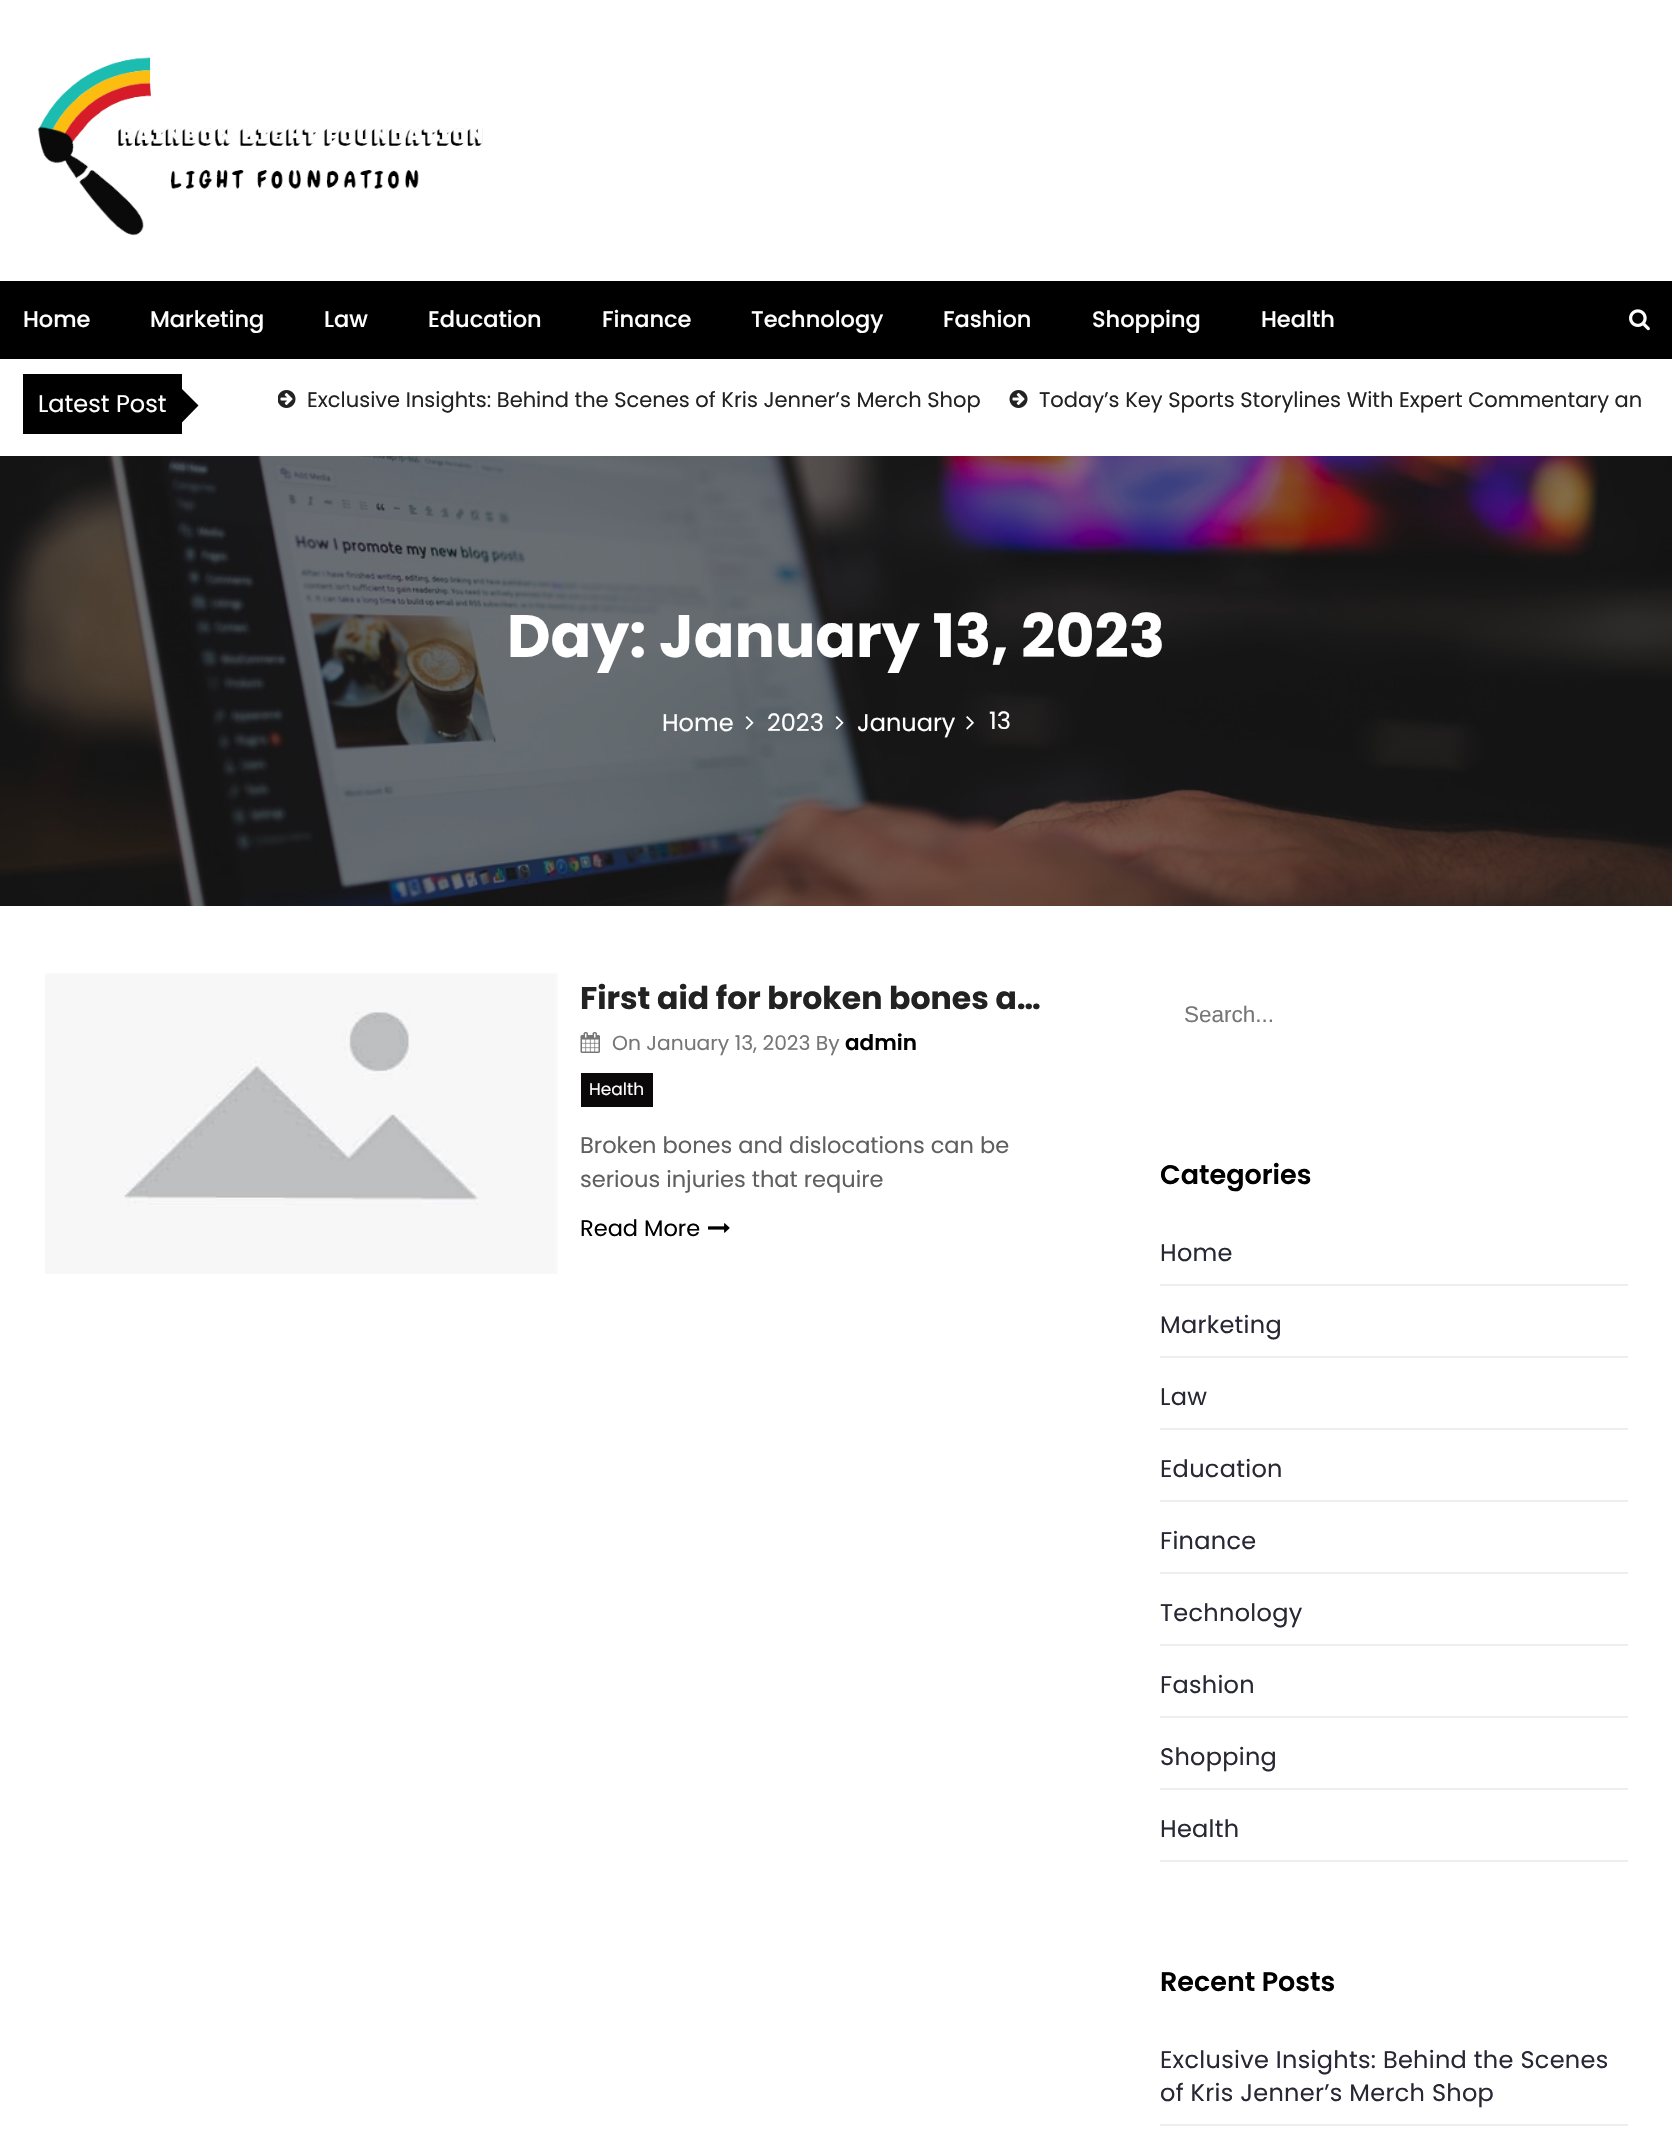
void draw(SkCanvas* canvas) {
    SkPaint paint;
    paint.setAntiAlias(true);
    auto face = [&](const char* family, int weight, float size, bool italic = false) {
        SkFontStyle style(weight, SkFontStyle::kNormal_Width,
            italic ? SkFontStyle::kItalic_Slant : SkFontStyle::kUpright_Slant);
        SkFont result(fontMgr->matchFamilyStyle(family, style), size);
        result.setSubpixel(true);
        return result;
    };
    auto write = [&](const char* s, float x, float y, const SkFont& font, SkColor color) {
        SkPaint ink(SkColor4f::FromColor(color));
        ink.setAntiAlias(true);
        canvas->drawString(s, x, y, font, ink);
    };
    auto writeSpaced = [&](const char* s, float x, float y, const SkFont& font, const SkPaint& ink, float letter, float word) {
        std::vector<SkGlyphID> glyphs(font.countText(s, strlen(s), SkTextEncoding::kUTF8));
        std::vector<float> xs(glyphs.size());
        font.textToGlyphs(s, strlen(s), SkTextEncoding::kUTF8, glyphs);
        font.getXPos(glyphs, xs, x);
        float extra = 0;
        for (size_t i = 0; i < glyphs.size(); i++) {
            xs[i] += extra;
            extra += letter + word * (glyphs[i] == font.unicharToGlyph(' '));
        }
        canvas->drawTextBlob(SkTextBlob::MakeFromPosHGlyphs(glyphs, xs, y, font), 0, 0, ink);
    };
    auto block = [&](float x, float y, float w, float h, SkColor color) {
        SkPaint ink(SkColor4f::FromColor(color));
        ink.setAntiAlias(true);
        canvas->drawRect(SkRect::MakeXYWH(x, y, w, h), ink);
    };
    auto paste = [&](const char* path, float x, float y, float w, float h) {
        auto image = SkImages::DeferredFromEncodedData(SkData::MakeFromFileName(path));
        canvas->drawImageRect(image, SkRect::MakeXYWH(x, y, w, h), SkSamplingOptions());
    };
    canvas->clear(SK_ColorWHITE);
    paste("pic1.png", 37, 57, 446, 179);
    block(0, 281, 1672, 78, SK_ColorBLACK);
    auto kFont1 = face("Poppins", 500, 22.5f);
    write("Home", 23, 327, kFont1, SK_ColorWHITE);
    write("Marketing", 150, 327, kFont1, SK_ColorWHITE);
    write("Law", 324, 327, kFont1, SK_ColorWHITE);
    write("Education", 428, 327, kFont1, SK_ColorWHITE);
    write("Finance", 602, 327, kFont1, SK_ColorWHITE);
    write("Technology", 751, 327, kFont1, SK_ColorWHITE);
    write("Fashion", 943, 327, kFont1, SK_ColorWHITE);
    write("Shopping", 1092, 327, kFont1, SK_ColorWHITE);
    write("Health", 1261, 327, kFont1, SK_ColorWHITE);
    paste("pic2.png", 1629, 309, 21, 22);
    block(23, 374, 159, 60, SK_ColorBLACK);
    paint.setColor(SK_ColorBLACK);
    canvas->drawPath(SkPathBuilder().moveTo(179.5f, 386.5f).lineTo(198.5f, 405.5f).lineTo(179.5f, 425).lineTo(160.5f, 405.5f).close().detach(), paint);
    auto kFont2 = face("Poppins", 400, 24);
    write("Latest Post", 38, 412, kFont2, SK_ColorWHITE);
    paste("pic3.png", 278, 390, 18, 18);
    auto kFont3 = face("Poppins", 400, 21);
    write("Exclusive Insights: Behind the Scenes of Kris Jenner’s Merch Shop", 307, 407, kFont3, SkColorSetRGB(34, 34, 34));
    paste("pic4.png", 1009, 390, 19, 18);
    write("Today’s Key Sports Storylines With Expert Commentary an", 1039, 407, kFont3, SkColorSetRGB(34, 34, 34));
    paste("pic5.png", 0, 456, 1672, 450);
    auto kFont4 = face("Poppins", 700, 60);
    write("Day: January 13, 2023", 507, 657, kFont4, SK_ColorWHITE);
    write("Home", 662, 731, kFont2, SK_ColorWHITE);
    paste("pic6.png", 745, 716, 9, 14);
    write("2023", 767, 731, kFont2, SK_ColorWHITE);
    paste("pic7.png", 835, 716, 9, 14);
    write("January", 857, 731, kFont2, SK_ColorWHITE);
    paste("pic8.png", 966, 716, 8, 14);
    write("13", 989, 729, kFont2, SK_ColorWHITE);
    block(45, 1273, 513, 1, SkColorSetRGB(248, 246, 254));
    paste("pic9.png", 45, 973, 513, 300);
    auto kFont5 = face("Poppins", 700, 31.5f);
    write("First aid for broken bones a…", 580, 1009, kFont5, SkColorSetRGB(34, 34, 34));
    paste("pic10.png", 580, 1032, 20, 21);
    auto kFont6 = face("Poppins", 400, 20.25f);
    write("On January 13, 2023 By", 612, 1050, kFont6, SkColorSetRGB(118, 118, 118));
    auto kFont7 = face("Poppins", 600, 21.5f);
    write("admin", 845, 1050, kFont7, SK_ColorBLACK);
    block(581, 1073, 72, 34, SkColorSetRGB(10, 8, 8));
    auto kFont8 = face("Poppins", 400, 17);
    write("Health", 589, 1095, kFont8, SK_ColorWHITE);
    auto kFont9 = face("Poppins", 400, 22.5f);
    write("Broken bones and dislocations can be", 580, 1153, kFont9, SkColorSetRGB(95, 95, 95));
    write("serious injuries that require", 580, 1187, kFont9, SkColorSetRGB(95, 95, 95));
    write("Read More", 580, 1236, kFont9, SK_ColorBLACK);
    paste("pic11.png", 708, 1223, 22, 10);
    auto kFont10 = face("Liberation Sans", 400, 22.5f);
    write("Search...", 1184, 1022, kFont10, SkColorSetRGB(118, 118, 118));
    auto kFont11 = face("Poppins", 600, 27);
    write("Categories", 1160, 1184, kFont11, SK_ColorBLACK);
    block(1160, 1284, 468, 2, SkColorSetRGB(238, 238, 238));
    paint.setColor(SkColorSetRGB(40, 40, 53));
    writeSpaced("Home", 1160, 1261, kFont2, paint, 0.3f, 0);
    block(1160, 1356, 468, 2, SkColorSetRGB(238, 238, 238));
    writeSpaced("Marketing", 1160, 1333, kFont2, paint, 0.3f, 0);
    block(1160, 1428, 468, 2, SkColorSetRGB(238, 238, 238));
    writeSpaced("Law", 1160, 1405, kFont2, paint, 0.3f, 0);
    block(1160, 1500, 468, 2, SkColorSetRGB(238, 238, 238));
    writeSpaced("Education", 1160, 1477, kFont2, paint, 0.3f, 0);
    block(1160, 1572, 468, 2, SkColorSetRGB(238, 238, 238));
    writeSpaced("Finance", 1160, 1549, kFont2, paint, 0.3f, 0);
    block(1160, 1644, 468, 2, SkColorSetRGB(238, 238, 238));
    writeSpaced("Technology", 1160, 1621, kFont2, paint, 0.3f, 0);
    block(1160, 1716, 468, 2, SkColorSetRGB(238, 238, 238));
    writeSpaced("Fashion", 1160, 1693, kFont2, paint, 0.3f, 0);
    block(1160, 1788, 468, 2, SkColorSetRGB(238, 238, 238));
    writeSpaced("Shopping", 1160, 1765, kFont2, paint, 0.3f, 0);
    block(1160, 1860, 468, 2, SkColorSetRGB(238, 238, 238));
    writeSpaced("Health", 1160, 1837, kFont2, paint, 0.3f, 0);
    write("Recent Posts", 1160, 1991, kFont11, SK_ColorBLACK);
    block(1160, 2124, 468, 2, SkColorSetRGB(238, 238, 238));
    writeSpaced("Exclusive Insights: Behind the Scenes", 1160, 2068, kFont2, paint, 0.3f, 0);
    writeSpaced("of Kris Jenner’s Merch Shop", 1160, 2101, kFont2, paint, 0.3f, 0);
}
